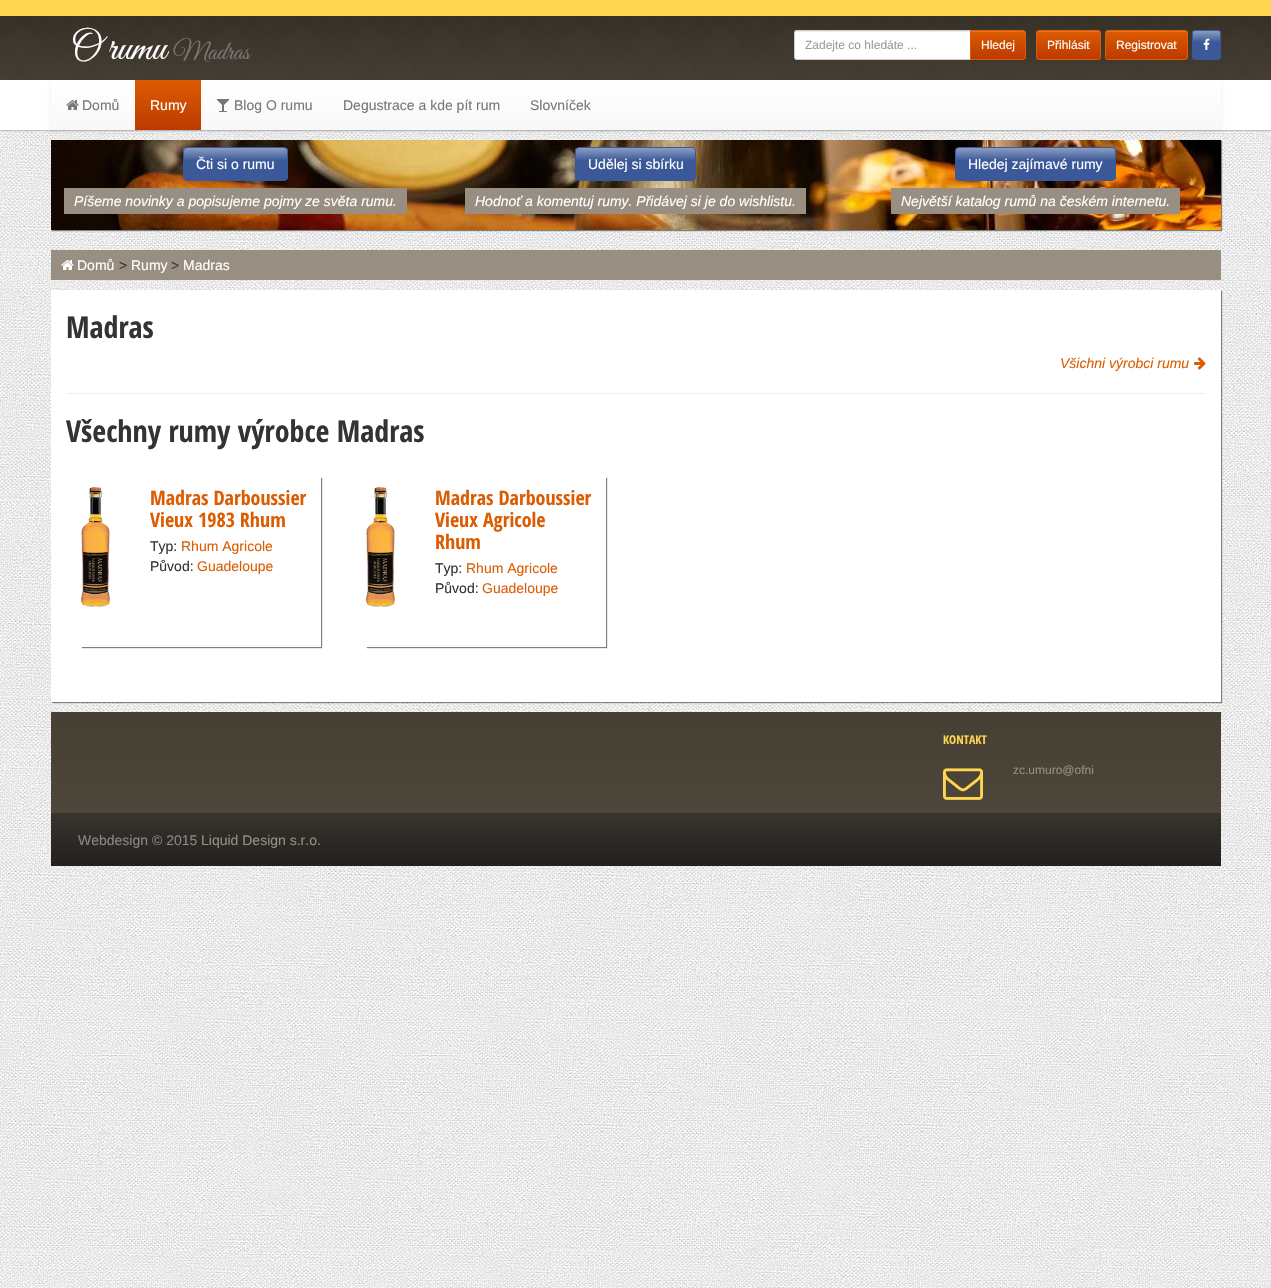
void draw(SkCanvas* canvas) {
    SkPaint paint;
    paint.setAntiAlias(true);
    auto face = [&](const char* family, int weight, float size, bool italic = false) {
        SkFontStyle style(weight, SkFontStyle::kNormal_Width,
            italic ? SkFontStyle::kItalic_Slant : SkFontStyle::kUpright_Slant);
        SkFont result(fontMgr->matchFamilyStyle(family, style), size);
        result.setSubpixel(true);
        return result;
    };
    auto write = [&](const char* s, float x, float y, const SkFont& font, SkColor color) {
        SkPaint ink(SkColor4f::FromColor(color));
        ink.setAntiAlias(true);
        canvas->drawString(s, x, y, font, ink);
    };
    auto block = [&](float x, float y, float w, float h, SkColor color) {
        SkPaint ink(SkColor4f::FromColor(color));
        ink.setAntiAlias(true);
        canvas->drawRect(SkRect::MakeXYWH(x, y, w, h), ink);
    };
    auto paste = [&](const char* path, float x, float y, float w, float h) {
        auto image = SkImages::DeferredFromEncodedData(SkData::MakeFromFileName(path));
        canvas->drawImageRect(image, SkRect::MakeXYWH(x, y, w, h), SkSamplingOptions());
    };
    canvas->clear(SK_ColorWHITE);
    paste("pic1.png", 0, 130, 1271, 1158);
    paint.setColor(SkColorSetRGB(192, 192, 192));
    paint.setMaskFilter(SkMaskFilter::MakeBlur(kNormal_SkBlurStyle, 0.5f));
    canvas->drawRect(SkRect::MakeXYWH(1, 1, 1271, 130), paint);
    paint.setMaskFilter(nullptr);
    block(0, 80, 1271, 50, SK_ColorWHITE);
    paste("pic2.png", 0, 0, 1271, 80);
    auto kFont1 = face("Great Vibes", 400, 40);
    write("O rumu", 71, 59, kFont1, SK_ColorWHITE);
    auto kFont2 = face("Great Vibes", 400, 26);
    write("Madras", 173, 59, kFont2, SkColorSetRGB(119, 119, 119));
    paint.setColor(SK_ColorWHITE);
    canvas->drawPath(SkPathBuilder().moveTo(797, 30).lineTo(971, 30).lineTo(971, 60).lineTo(797, 60).cubicTo(795.5f, 60, 794, 58.5f, 794, 57).lineTo(794, 33).cubicTo(794, 31.5f, 795.5f, 30, 797, 30).close().detach(), paint);
    paint.setColor(SkColorSetRGB(236, 236, 236));
    canvas->drawPath(SkPathBuilder().moveTo(797, 32).lineTo(970, 32).lineTo(970, 31).lineTo(796, 31).cubicTo(795, 32, 795, 33, 795, 34).cubicTo(795, 33, 796, 32, 797, 32).close().detach(), paint);
    paint.setStyle(SkPaint::kStroke_Style);
    paint.setStrokeWidth(1);
    paint.setColor(SkColorSetRGB(204, 204, 204));
    canvas->drawPath(SkPathBuilder().moveTo(797, 30.5f).lineTo(970.5f, 30.5f).lineTo(970.5f, 59.5f).lineTo(797, 59.5f).cubicTo(795.5f, 59.5f, 794.5f, 58.5f, 794.5f, 57).lineTo(794.5f, 33).cubicTo(794.5f, 31.5f, 795.5f, 30.5f, 797, 30.5f).close().detach(), paint);
    auto kFont3 = face("Liberation Sans", 400, 12);
    write("Zadejte co hledáte ...", 805, 49, kFont3, SkColorSetRGB(153, 153, 153));
    paint.setStyle(SkPaint::kFill_Style);
    paint.setColor(SkColorSetARGB(18, 0, 0, 0));
    paint.setMaskFilter(SkMaskFilter::MakeBlur(kNormal_SkBlurStyle, 0.5f));
    canvas->drawRoundRect(SkRect::MakeXYWH(970, 31, 56, 30), 3, 3, paint);
    paint.setMaskFilter(nullptr);
    canvas->save();
    canvas->clipPath(SkPathBuilder().moveTo(970, 30).lineTo(1023, 30).cubicTo(1024.5f, 30, 1026, 31.5f, 1026, 33).lineTo(1026, 57).cubicTo(1026, 58.5f, 1024.5f, 60, 1023, 60).lineTo(970, 60).close().detach(), true);
    {
        const SkColor colors[] = {SkColorSetRGB(220, 92, 1), SkColorSetRGB(188, 58, 1)};
        const float stops[] = {0, 1};
        const SkPoint ends[] = {{998, 31}, {998, 59}};
        paint.setShader(SkGradientShader::MakeLinear(ends, colors, stops, 2, SkTileMode::kClamp));
        paint.setAlpha(255);
    }
    canvas->drawRect(SkRect::MakeXYWH(971, 31, 55, 28), paint);
    canvas->restore();
    paint.setShader(nullptr);
    paint.setColor(SkColorSetRGB(224, 116, 39));
    canvas->drawPath(SkPathBuilder().moveTo(971, 32).lineTo(1023, 32).cubicTo(1024, 32, 1025, 33, 1025, 34).lineTo(1025, 33).cubicTo(1025, 32, 1024, 31, 1023, 31).lineTo(971, 31).close().detach(), paint);
    paint.setStyle(SkPaint::kStroke_Style);
    paint.setColor(SkColorSetRGB(220, 92, 1));
    canvas->drawPath(SkPathBuilder().moveTo(970.5f, 30.5f).lineTo(1023, 30.5f).cubicTo(1024.5f, 30.5f, 1025.5f, 31.5f, 1025.5f, 33).lineTo(1025.5f, 57).cubicTo(1025.5f, 58.5f, 1024.5f, 59.5f, 1023, 59.5f).lineTo(970.5f, 59.5f).close().detach(), paint);
    write("Hledej", 981, 49, kFont3, SK_ColorWHITE);
    canvas->save();
    canvas->clipPath(SkPathBuilder().moveTo(1039, 30).lineTo(1098, 30).cubicTo(1099.5f, 30, 1101, 31.5f, 1101, 33).lineTo(1101, 57).cubicTo(1101, 58.5f, 1099.5f, 60, 1098, 60).lineTo(1039, 60).cubicTo(1037.5f, 60, 1036, 58.5f, 1036, 57).lineTo(1036, 33).cubicTo(1036, 31.5f, 1037.5f, 30, 1039, 30).close().detach(), true);
    paint.setStyle(SkPaint::kFill_Style);
    {
        const SkColor colors[] = {SkColorSetRGB(220, 92, 1), SkColorSetRGB(188, 58, 1)};
        const float stops[] = {0, 1};
        const SkPoint ends[] = {{1069, 31}, {1069, 59}};
        paint.setShader(SkGradientShader::MakeLinear(ends, colors, stops, 2, SkTileMode::kClamp));
        paint.setAlpha(255);
    }
    canvas->drawRect(SkRect::MakeXYWH(1036, 31, 65, 28), paint);
    canvas->restore();
    paint.setShader(nullptr);
    paint.setColor(SkColorSetARGB(38, 255, 255, 255));
    canvas->drawPath(SkPathBuilder().moveTo(1039, 32).lineTo(1098, 32).cubicTo(1099, 32, 1100, 33, 1100, 34).cubicTo(1100, 28, 1092, 31, 1088, 31).lineTo(1049, 31).cubicTo(1045, 31, 1037, 28, 1037, 34).cubicTo(1037, 33, 1038, 32, 1039, 32).close().detach(), paint);
    paint.setStyle(SkPaint::kStroke_Style);
    paint.setColor(SkColorSetRGB(220, 92, 1));
    canvas->drawRoundRect(SkRect::MakeXYWH(1036.5f, 30.5f, 64, 29), 2.5f, 2.5f, paint);
    write("Přihlásit", 1047, 49, kFont3, SK_ColorWHITE);
    canvas->save();
    canvas->clipPath(SkPathBuilder().moveTo(1108, 30).lineTo(1185, 30).cubicTo(1186.5f, 30, 1188, 31.5f, 1188, 33).lineTo(1188, 57).cubicTo(1188, 58.5f, 1186.5f, 60, 1185, 60).lineTo(1108, 60).cubicTo(1106.5f, 60, 1105, 58.5f, 1105, 57).lineTo(1105, 33).cubicTo(1105, 31.5f, 1106.5f, 30, 1108, 30).close().detach(), true);
    paint.setStyle(SkPaint::kFill_Style);
    {
        const SkColor colors[] = {SkColorSetRGB(220, 92, 1), SkColorSetRGB(188, 58, 1)};
        const float stops[] = {0, 1};
        const SkPoint ends[] = {{1147, 31}, {1147, 59}};
        paint.setShader(SkGradientShader::MakeLinear(ends, colors, stops, 2, SkTileMode::kClamp));
        paint.setAlpha(255);
    }
    canvas->drawRect(SkRect::MakeXYWH(1105, 31, 83, 28), paint);
    canvas->restore();
    paint.setShader(nullptr);
    paint.setColor(SkColorSetARGB(38, 255, 255, 255));
    canvas->drawPath(SkPathBuilder().moveTo(1108, 32).lineTo(1185, 32).cubicTo(1186, 32, 1187, 33, 1187, 34).cubicTo(1187, 27, 1175, 31, 1172, 31).lineTo(1121, 31).cubicTo(1118, 31, 1106, 27, 1106, 34).cubicTo(1106, 33, 1107, 32, 1108, 32).close().detach(), paint);
    paint.setStyle(SkPaint::kStroke_Style);
    paint.setColor(SkColorSetRGB(220, 92, 1));
    canvas->drawRoundRect(SkRect::MakeXYWH(1105.5f, 30.5f, 82, 29), 2.5f, 2.5f, paint);
    write("Registrovat", 1116, 49, kFont3, SK_ColorWHITE);
    canvas->save();
    canvas->clipPath(SkPathBuilder().moveTo(1195, 30).lineTo(1218, 30).cubicTo(1219.5f, 30, 1221, 31.5f, 1221, 33).lineTo(1221, 57).cubicTo(1221, 58.5f, 1219.5f, 60, 1218, 60).lineTo(1195, 60).cubicTo(1193.5f, 60, 1192, 58.5f, 1192, 57).lineTo(1192, 33).cubicTo(1192, 31.5f, 1193.5f, 30, 1195, 30).close().detach(), true);
    paint.setStyle(SkPaint::kFill_Style);
    {
        const SkColor colors[] = {SkColorSetRGB(139, 157, 195), SkColorSetRGB(59, 89, 152)};
        const float stops[] = {0, 0.4f};
        const SkPoint ends[] = {{1207, 31}, {1207, 59}};
        paint.setShader(SkGradientShader::MakeLinear(ends, colors, stops, 2, SkTileMode::kClamp));
        paint.setAlpha(255);
    }
    canvas->drawRect(SkRect::MakeXYWH(1192, 31, 29, 28), paint);
    canvas->restore();
    paint.setStyle(SkPaint::kStroke_Style);
    paint.setShader(nullptr);
    paint.setColor(SkColorSetRGB(59, 89, 152));
    canvas->drawRoundRect(SkRect::MakeXYWH(1192.5f, 30.5f, 28, 29), 2.5f, 2.5f, paint);
    paste("pic3.png", 1203, 38, 7, 12);
    paint.setStyle(SkPaint::kFill_Style);
    paint.setColor(SkColorSetARGB(18, 0, 0, 0));
    paint.setMaskFilter(SkMaskFilter::MakeBlur(kNormal_SkBlurStyle, 2.5f));
    canvas->drawRoundRect(SkRect::MakeXYWH(51, 81, 1170, 50), 4, 4, paint);
    paint.setMaskFilter(nullptr);
    {
        const SkColor colors[] = {SK_ColorWHITE, SkColorSetRGB(248, 248, 248)};
        const float stops[] = {0, 1};
        const SkPoint ends[] = {{636, 80}, {636, 130}};
        paint.setShader(SkGradientShader::MakeLinear(ends, colors, stops, 2, SkTileMode::kClamp));
        paint.setAlpha(255);
    }
    canvas->drawRoundRect(SkRect::MakeXYWH(51, 80, 1170, 50), 4, 4, paint);
    paste("pic4.png", 66, 100, 13, 10);
    auto kFont4 = face("Liberation Sans", 400, 14);
    write("Domů", 82, 110, kFont4, SkColorSetRGB(119, 119, 119));
    {
        const SkColor colors[] = {SkColorSetRGB(220, 92, 1), SkColorSetRGB(188, 58, 1)};
        const float stops[] = {0, 1};
        const SkPoint ends[] = {{168, 80}, {168, 130}};
        paint.setShader(SkGradientShader::MakeLinear(ends, colors, stops, 2, SkTileMode::kClamp));
        paint.setAlpha(255);
    }
    canvas->drawRect(SkRect::MakeXYWH(135, 80, 66, 50), paint);
    write("Rumy", 150, 110, kFont4, SK_ColorWHITE);
    paste("pic5.png", 216, 99, 14, 13);
    write("Blog O rumu", 234, 110, kFont4, SkColorSetRGB(119, 119, 119));
    write("Degustrace a kde pít rum", 343, 110, kFont4, SkColorSetRGB(119, 119, 119));
    write("Slovníček", 530, 110, kFont4, SkColorSetRGB(119, 119, 119));
    paint.setShader(nullptr);
    paint.setColor(SkColorSetRGB(128, 128, 128));
    paint.setMaskFilter(SkMaskFilter::MakeBlur(kNormal_SkBlurStyle, 0.5f));
    canvas->drawRect(SkRect::MakeXYWH(52, 141, 1170, 90), paint);
    paint.setMaskFilter(nullptr);
    paste("pic6.png", 51, 140, 1170, 90);
    canvas->save();
    canvas->clipPath(SkPathBuilder().moveTo(187, 147).lineTo(284, 147).cubicTo(286, 147, 288, 149, 288, 151).lineTo(288, 177).cubicTo(288, 179, 286, 181, 284, 181).lineTo(187, 181).cubicTo(185, 181, 183, 179, 183, 177).lineTo(183, 151).cubicTo(183, 149, 185, 147, 187, 147).close().detach(), true);
    {
        const SkColor colors[] = {SkColorSetRGB(139, 157, 195), SkColorSetRGB(59, 89, 152)};
        const float stops[] = {0, 0.4f};
        const SkPoint ends[] = {{236, 148}, {236, 180}};
        paint.setShader(SkGradientShader::MakeLinear(ends, colors, stops, 2, SkTileMode::kClamp));
        paint.setAlpha(255);
    }
    canvas->drawRect(SkRect::MakeXYWH(183, 148, 105, 32), paint);
    canvas->restore();
    paint.setStyle(SkPaint::kStroke_Style);
    paint.setShader(nullptr);
    paint.setColor(SkColorSetRGB(59, 89, 152));
    canvas->drawRoundRect(SkRect::MakeXYWH(183.5f, 147.5f, 104, 33), 3.5f, 3.5f, paint);
    write("Čti si o rumu", 196, 169, kFont4, SK_ColorWHITE);
    block(64, 188, 343, 26, SkColorSetRGB(152, 142, 129));
    auto kFont5 = face("Liberation Sans", 400, 14, true);
    write("Píšeme novinky a popisujeme pojmy ze světa rumu.", 74, 206, kFont5, SK_ColorWHITE);
    canvas->save();
    canvas->clipPath(SkPathBuilder().moveTo(579, 147).lineTo(692, 147).cubicTo(694, 147, 696, 149, 696, 151).lineTo(696, 177).cubicTo(696, 179, 694, 181, 692, 181).lineTo(579, 181).cubicTo(577, 181, 575, 179, 575, 177).lineTo(575, 151).cubicTo(575, 149, 577, 147, 579, 147).close().detach(), true);
    paint.setStyle(SkPaint::kFill_Style);
    {
        const SkColor colors[] = {SkColorSetRGB(139, 157, 195), SkColorSetRGB(59, 89, 152)};
        const float stops[] = {0, 0.4f};
        const SkPoint ends[] = {{636, 148}, {636, 180}};
        paint.setShader(SkGradientShader::MakeLinear(ends, colors, stops, 2, SkTileMode::kClamp));
        paint.setAlpha(255);
    }
    canvas->drawRect(SkRect::MakeXYWH(575, 148, 121, 32), paint);
    canvas->restore();
    paint.setStyle(SkPaint::kStroke_Style);
    paint.setShader(nullptr);
    paint.setColor(SkColorSetRGB(59, 89, 152));
    canvas->drawRoundRect(SkRect::MakeXYWH(575.5f, 147.5f, 120, 33), 3.5f, 3.5f, paint);
    write("Udělej si sbírku", 588, 169, kFont4, SK_ColorWHITE);
    block(465, 188, 341, 26, SkColorSetRGB(152, 142, 129));
    write("Hodnoť a komentuj rumy. Přidávej si je do wishlistu.", 475, 206, kFont5, SK_ColorWHITE);
    canvas->save();
    canvas->clipPath(SkPathBuilder().moveTo(959, 147).lineTo(1112, 147).cubicTo(1114, 147, 1116, 149, 1116, 151).lineTo(1116, 177).cubicTo(1116, 179, 1114, 181, 1112, 181).lineTo(959, 181).cubicTo(957, 181, 955, 179, 955, 177).lineTo(955, 151).cubicTo(955, 149, 957, 147, 959, 147).close().detach(), true);
    paint.setStyle(SkPaint::kFill_Style);
    {
        const SkColor colors[] = {SkColorSetRGB(139, 157, 195), SkColorSetRGB(59, 89, 152)};
        const float stops[] = {0, 0.4f};
        const SkPoint ends[] = {{1036, 148}, {1036, 180}};
        paint.setShader(SkGradientShader::MakeLinear(ends, colors, stops, 2, SkTileMode::kClamp));
        paint.setAlpha(255);
    }
    canvas->drawRect(SkRect::MakeXYWH(955, 148, 161, 32), paint);
    canvas->restore();
    paint.setStyle(SkPaint::kStroke_Style);
    paint.setShader(nullptr);
    paint.setColor(SkColorSetRGB(59, 89, 152));
    canvas->drawRoundRect(SkRect::MakeXYWH(955.5f, 147.5f, 160, 33), 3.5f, 3.5f, paint);
    write("Hledej zajímavé rumy", 968, 169, kFont4, SK_ColorWHITE);
    block(891, 188, 289, 26, SkColorSetRGB(152, 142, 129));
    write("Největší katalog rumů na českém internetu.", 901, 206, kFont5, SK_ColorWHITE);
    block(51, 250, 1170, 30, SkColorSetRGB(152, 142, 129));
    paste("pic7.png", 61, 260, 13, 10);
    write("Domů", 77, 270, kFont4, SK_ColorWHITE);
    write(">", 119, 270, kFont4, SkColorSetRGB(51, 51, 51));
    write("Rumy", 131, 270, kFont4, SK_ColorWHITE);
    write(">", 171, 270, kFont4, SkColorSetRGB(51, 51, 51));
    write("Madras", 183, 270, kFont4, SK_ColorWHITE);
    paint.setStyle(SkPaint::kFill_Style);
    paint.setColor(SkColorSetRGB(128, 128, 128));
    paint.setMaskFilter(SkMaskFilter::MakeBlur(kNormal_SkBlurStyle, 0.5f));
    canvas->drawRect(SkRect::MakeXYWH(52, 291, 1170, 412), paint);
    paint.setMaskFilter(nullptr);
    block(51, 290, 1170, 412, SK_ColorWHITE);
    auto kFont6 = face("Open Sans Condensed", 700, 30);
    write("Madras", 66, 338, kFont6, SkColorSetRGB(51, 51, 51));
    write("Všichni výrobci rumu", 1060, 368, kFont5, SkColorSetRGB(220, 92, 1));
    paste("pic8.png", 1194, 357, 12, 13);
    block(66, 393, 1140, 1, SkColorSetRGB(238, 238, 238));
    write("Všechny rumy výrobce Madras", 66, 442, kFont6, SkColorSetRGB(51, 51, 51));
    canvas->save();
    canvas->clipPath(SkPathBuilder(SkPathFillType::kEvenOdd).moveTo(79, 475).lineTo(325, 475).lineTo(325, 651).lineTo(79, 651).close().moveTo(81, 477).lineTo(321, 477).lineTo(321, 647).lineTo(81, 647).close().detach(), true);
    paint.setMaskFilter(SkMaskFilter::MakeBlur(kNormal_SkBlurStyle, 0.5f));
    canvas->drawRect(SkRect::MakeXYWH(82, 478, 240, 170), paint);
    paint.setMaskFilter(nullptr);
    canvas->restore();
    paste("pic9.png", 81, 487, 29, 120);
    auto kFont7 = face("Open Sans Condensed", 700, 20);
    write("Madras Darboussier", 150, 505, kFont7, SkColorSetRGB(220, 92, 1));
    write("Vieux 1983 Rhum", 150, 527, kFont7, SkColorSetRGB(220, 92, 1));
    write("Typ:", 150, 551, kFont4, SkColorSetRGB(51, 51, 51));
    write("Rhum Agricole", 181, 551, kFont4, SkColorSetRGB(220, 92, 1));
    write("Původ:", 150, 571, kFont4, SkColorSetRGB(51, 51, 51));
    write("Guadeloupe", 197, 571, kFont4, SkColorSetRGB(220, 92, 1));
    canvas->save();
    canvas->clipPath(SkPathBuilder(SkPathFillType::kEvenOdd).moveTo(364, 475).lineTo(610, 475).lineTo(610, 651).lineTo(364, 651).close().moveTo(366, 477).lineTo(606, 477).lineTo(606, 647).lineTo(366, 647).close().detach(), true);
    paint.setMaskFilter(SkMaskFilter::MakeBlur(kNormal_SkBlurStyle, 0.5f));
    canvas->drawRect(SkRect::MakeXYWH(367, 478, 240, 170), paint);
    paint.setMaskFilter(nullptr);
    canvas->restore();
    paste("pic10.png", 366, 487, 29, 120);
    write("Madras Darboussier", 435, 505, kFont7, SkColorSetRGB(220, 92, 1));
    write("Vieux Agricole", 435, 527, kFont7, SkColorSetRGB(220, 92, 1));
    write("Rhum", 435, 549, kFont7, SkColorSetRGB(220, 92, 1));
    write("Typ:", 435, 573, kFont4, SkColorSetRGB(51, 51, 51));
    write("Rhum Agricole", 466, 573, kFont4, SkColorSetRGB(220, 92, 1));
    write("Původ:", 435, 593, kFont4, SkColorSetRGB(51, 51, 51));
    write("Guadeloupe", 482, 593, kFont4, SkColorSetRGB(220, 92, 1));
    {
        const SkColor colors[] = {SkColorSetRGB(70, 63, 52), SkColorSetRGB(78, 70, 59)};
        const float stops[] = {0, 1};
        const SkPoint ends[] = {{636, 712}, {636, 813}};
        paint.setShader(SkGradientShader::MakeLinear(ends, colors, stops, 2, SkTileMode::kClamp));
        paint.setAlpha(255);
    }
    canvas->drawRect(SkRect::MakeXYWH(51, 712, 1170, 101), paint);
    auto kFont8 = face("Open Sans Condensed", 700, 12);
    write("KONTAKT", 943, 744, kFont8, SkColorSetRGB(255, 214, 79));
    paste("pic11.png", 943, 768, 40, 32);
    write("zc.umuro@ofni", 1013, 774, kFont3, SkColorSetRGB(152, 142, 129));
    {
        const SkColor colors[] = {SkColorSetRGB(56, 52, 47), SkColorSetRGB(35, 32, 29)};
        const float stops[] = {0, 1};
        const SkPoint ends[] = {{636, 813}, {636, 866}};
        paint.setShader(SkGradientShader::MakeLinear(ends, colors, stops, 2, SkTileMode::kClamp));
        paint.setAlpha(255);
    }
    canvas->drawRect(SkRect::MakeXYWH(51, 813, 1170, 53), paint);
    write("Webdesign © 2015", 78, 845, kFont4, SkColorSetRGB(136, 136, 136));
    write("Liquid Design s.r.o.", 201, 845, kFont4, SkColorSetRGB(152, 142, 129));
}
